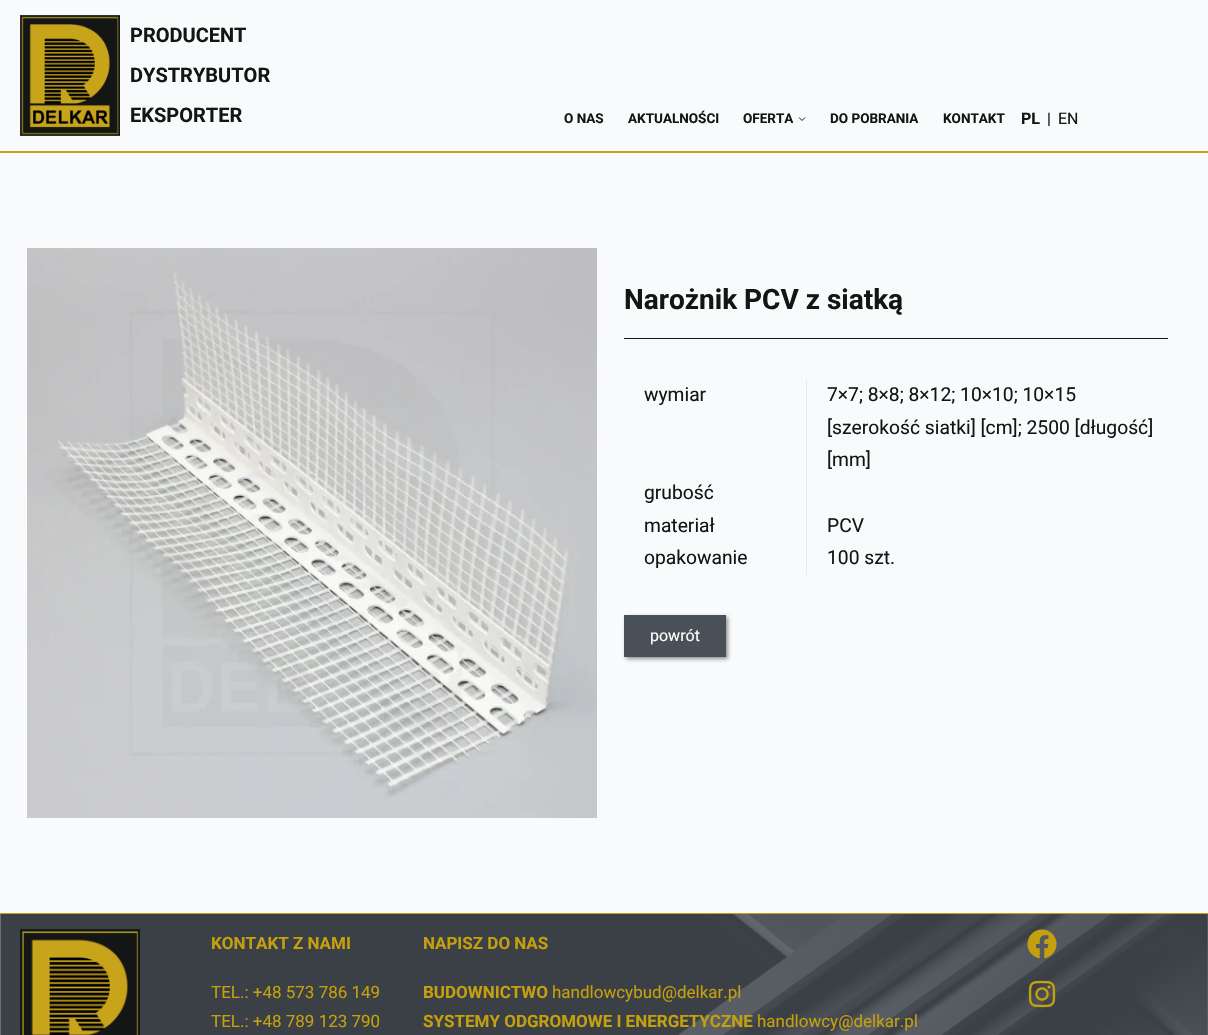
void draw(SkCanvas* canvas) {
    SkPaint paint;
    paint.setAntiAlias(true);
    auto face = [&](const char* family, int weight, float size, bool italic = false) {
        SkFontStyle style(weight, SkFontStyle::kNormal_Width,
            italic ? SkFontStyle::kItalic_Slant : SkFontStyle::kUpright_Slant);
        SkFont result(fontMgr->matchFamilyStyle(family, style), size);
        result.setSubpixel(true);
        return result;
    };
    auto write = [&](const char* s, float x, float y, const SkFont& font, SkColor color) {
        SkPaint ink(SkColor4f::FromColor(color));
        ink.setAntiAlias(true);
        canvas->drawString(s, x, y, font, ink);
    };
    auto block = [&](float x, float y, float w, float h, SkColor color) {
        SkPaint ink(SkColor4f::FromColor(color));
        ink.setAntiAlias(true);
        canvas->drawRect(SkRect::MakeXYWH(x, y, w, h), ink);
    };
    auto paste = [&](const char* path, float x, float y, float w, float h) {
        auto image = SkImages::DeferredFromEncodedData(SkData::MakeFromFileName(path));
        canvas->drawImageRect(image, SkRect::MakeXYWH(x, y, w, h), SkSamplingOptions());
    };
    canvas->clear(SkColorSetRGB(249, 250, 251));
    block(0, 914, 1208, 121, SkColorSetRGB(108, 114, 120));
    block(0, 151, 1208, 2, SkColorSetRGB(196, 160, 14));
    paste("pic1.png", 20, 15, 100, 121);
    auto kFont1 = face("Roboto", 700, 20);
    write("PRODUCENT", 130, 42, kFont1, SkColorSetRGB(20, 21, 21));
    write("DYSTRYBUTOR", 130, 82, kFont1, SkColorSetRGB(20, 21, 21));
    write("EKSPORTER", 130, 122, kFont1, SkColorSetRGB(20, 21, 21));
    auto kFont2 = face("Roboto", 700, 13.5f);
    write("O NAS", 564, 123, kFont2, SkColorSetRGB(20, 21, 21));
    write("AKTUALNOŚCI", 628, 123, kFont2, SkColorSetRGB(20, 21, 21));
    write("OFERTA", 743, 123, kFont2, SkColorSetRGB(20, 21, 21));
    paint.setStyle(SkPaint::kStroke_Style);
    paint.setStrokeWidth(1);
    paint.setColor(SkColorSetRGB(20, 21, 21));
    canvas->drawPath(SkPathBuilder().moveTo(799, 117.5f).lineTo(802, 120.5f).lineTo(805, 117.5f).detach(), paint);
    write("DO POBRANIA", 830, 123, kFont2, SkColorSetRGB(20, 21, 21));
    write("KONTAKT", 943, 123, kFont2, SkColorSetRGB(20, 21, 21));
    auto kFont3 = face("Roboto", 700, 16);
    write("PL", 1021, 124, kFont3, SkColorSetRGB(20, 21, 21));
    auto kFont4 = face("Roboto", 400, 16);
    write("|", 1047, 124, kFont4, SkColorSetRGB(20, 21, 21));
    write("EN", 1058, 124, kFont4, SkColorSetRGB(20, 21, 21));
    paste("pic2.png", 27, 248, 570, 570);
    block(624, 338, 544, 1, SkColorSetRGB(20, 21, 21));
    auto kFont5 = face("Roboto", 700, 28);
    write("Narożnik PCV z siatką", 624, 309, kFont5, SkColorSetRGB(20, 21, 21));
    block(806, 379, 1, 196, SkColorSetRGB(231, 232, 232));
    auto kFont6 = face("Roboto", 400, 19.25f);
    write("wymiar", 644, 401, kFont6, SkColorSetRGB(20, 21, 21));
    write("7×7; 8×8; 8×12; 10×10; 10×15", 827, 401, kFont6, SkColorSetRGB(20, 21, 21));
    write("[szerokość siatki] [cm]; 2500 [długość]", 827, 434, kFont6, SkColorSetRGB(20, 21, 21));
    write("[mm]", 827, 466, kFont6, SkColorSetRGB(20, 21, 21));
    write("grubość", 644, 499, kFont6, SkColorSetRGB(20, 21, 21));
    write("materiał", 644, 532, kFont6, SkColorSetRGB(20, 21, 21));
    write("PCV", 827, 532, kFont6, SkColorSetRGB(20, 21, 21));
    write("opakowanie", 644, 564, kFont6, SkColorSetRGB(20, 21, 21));
    write("100 szt.", 827, 564, kFont6, SkColorSetRGB(20, 21, 21));
    paint.setStyle(SkPaint::kFill_Style);
    paint.setColor(SkColorSetARGB(184, 105, 105, 105));
    paint.setMaskFilter(SkMaskFilter::MakeBlur(kNormal_SkBlurStyle, 2));
    canvas->drawRect(SkRect::MakeXYWH(626, 617, 102, 42), paint);
    paint.setMaskFilter(nullptr);
    block(624, 615, 102, 42, SkColorSetRGB(73, 80, 87));
    write("powrót", 650, 641, kFont4, SK_ColorWHITE);
    paste("pic3.png", 0, 914, 1208, 121);
    block(0, 913, 1208, 1, SkColorSetRGB(196, 160, 14));
    paste("pic4.png", 20, 929, 120, 106);
    auto kFont7 = face("Roboto", 700, 17);
    write("KONTAKT Z NAMI", 211, 949, kFont7, SkColorSetRGB(196, 160, 14));
    auto kFont8 = face("Roboto", 400, 17);
    write("TEL.: +48 573 786 149", 211, 998, kFont8, SkColorSetRGB(196, 160, 14));
    write("TEL.: +48 789 123 790", 211, 1027, kFont8, SkColorSetRGB(196, 160, 14));
    write("NAPISZ DO NAS", 423, 949, kFont7, SkColorSetRGB(196, 160, 14));
    write("BUDOWNICTWO", 423, 998, kFont7, SkColorSetRGB(196, 160, 14));
    write("handlowcybud@delkar.pl", 552, 998, kFont8, SkColorSetRGB(196, 160, 14));
    write("SYSTEMY ODGROMOWE I ENERGETYCZNE", 423, 1027, kFont7, SkColorSetRGB(196, 160, 14));
    write("handlowcy@delkar.pl", 757, 1027, kFont8, SkColorSetRGB(196, 160, 14));
    paste("pic5.png", 1027, 929, 30, 30);
    paste("pic6.png", 1028, 980, 28, 28);
}
